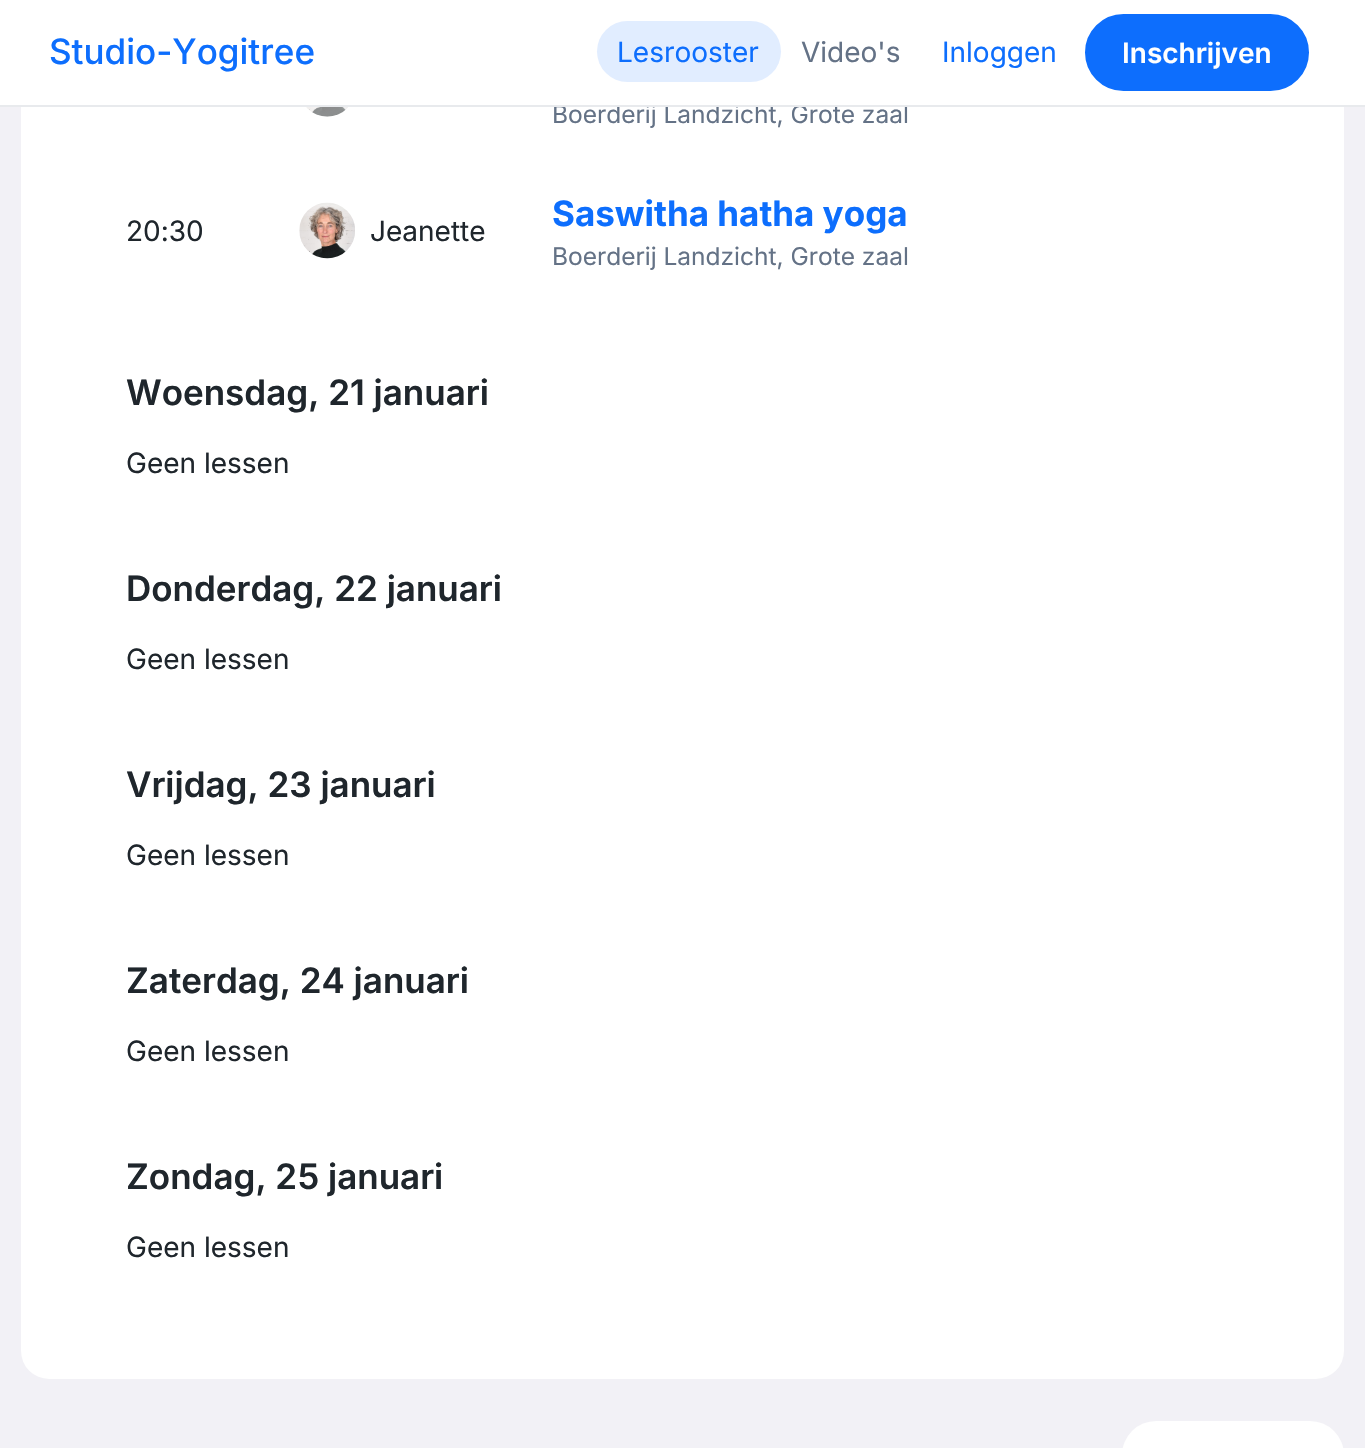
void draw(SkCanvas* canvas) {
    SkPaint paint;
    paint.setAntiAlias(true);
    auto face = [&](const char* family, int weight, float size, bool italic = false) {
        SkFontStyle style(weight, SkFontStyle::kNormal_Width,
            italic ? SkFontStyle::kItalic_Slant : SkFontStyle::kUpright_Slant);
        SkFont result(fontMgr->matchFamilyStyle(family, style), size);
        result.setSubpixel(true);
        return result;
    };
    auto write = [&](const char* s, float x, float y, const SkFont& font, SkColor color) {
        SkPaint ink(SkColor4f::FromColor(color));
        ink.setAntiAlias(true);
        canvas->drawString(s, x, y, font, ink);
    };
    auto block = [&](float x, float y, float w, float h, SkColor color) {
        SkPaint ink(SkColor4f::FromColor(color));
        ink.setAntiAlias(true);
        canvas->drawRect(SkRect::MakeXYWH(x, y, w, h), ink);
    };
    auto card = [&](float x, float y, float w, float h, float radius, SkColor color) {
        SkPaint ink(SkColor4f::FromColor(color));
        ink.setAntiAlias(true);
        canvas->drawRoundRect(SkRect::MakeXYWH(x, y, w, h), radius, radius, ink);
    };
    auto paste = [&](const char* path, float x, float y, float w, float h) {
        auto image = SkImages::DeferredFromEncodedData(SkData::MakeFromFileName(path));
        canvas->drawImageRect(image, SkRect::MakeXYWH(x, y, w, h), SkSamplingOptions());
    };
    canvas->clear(SkColorSetRGB(242, 241, 246));
    card(21, -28, 1323, 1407, 28, SK_ColorWHITE);
    auto kFont1 = face("Inter", 400, 24.5f);
    write("Boerderij Landzicht, Grote zaal", 552, 123, kFont1, SkColorSetRGB(100, 114, 134));
    block(0, 0, 1365, 105, SK_ColorWHITE);
    block(0, 105, 1365, 2, SkColorSetRGB(232, 234, 237));
    auto kFont2 = face("Inter", 500, 35);
    write("Studio-Yogitree", 49, 64, kFont2, SkColorSetRGB(13, 110, 253));
    card(597, 21, 184, 61, 30.5f, SkColorSetRGB(225, 237, 255));
    auto kFont3 = face("Inter", 400, 28);
    write("Lesrooster", 617, 62, kFont3, SkColorSetRGB(13, 110, 253));
    write("Video's", 801, 62, kFont3, SkColorSetRGB(100, 114, 134));
    write("Inloggen", 942, 62, kFont3, SkColorSetRGB(13, 110, 253));
    paint.setColor(SkColorSetRGB(13, 110, 253));
    canvas->drawRoundRect(SkRect::MakeXYWH(1087, 16, 220, 73), 36.5f, 36.5f, paint);
    paint.setStyle(SkPaint::kStroke_Style);
    paint.setStrokeWidth(4);
    canvas->drawRoundRect(SkRect::MakeXYWH(1087, 16, 220, 73), 36.5f, 36.5f, paint);
    auto kFont4 = face("Inter", 600, 28);
    write("Inschrijven", 1122, 63, kFont4, SK_ColorWHITE);
    paste("pic1.png", 306, 107, 42, 10);
    write("20:30", 126, 241, kFont3, SkColorSetRGB(31, 38, 44));
    paste("pic2.png", 299, 202, 56, 57);
    write("Jeanette", 370, 241, kFont3, SkColorSetRGB(31, 38, 44));
    auto kFont5 = face("Inter", 700, 35);
    write("Saswitha hatha yoga", 552, 226, kFont5, SkColorSetRGB(13, 110, 253));
    write("Boerderij Landzicht, Grote zaal", 552, 265, kFont1, SkColorSetRGB(100, 114, 134));
    auto kFont6 = face("Inter", 600, 35);
    write("Woensdag, 21 januari", 126, 405, kFont6, SkColorSetRGB(31, 38, 44));
    write("Geen lessen", 126, 473, kFont3, SkColorSetRGB(31, 38, 44));
    write("Donderdag, 22 januari", 126, 601, kFont6, SkColorSetRGB(31, 38, 44));
    write("Geen lessen", 126, 669, kFont3, SkColorSetRGB(31, 38, 44));
    write("Vrijdag, 23 januari", 126, 797, kFont6, SkColorSetRGB(31, 38, 44));
    write("Geen lessen", 126, 865, kFont3, SkColorSetRGB(31, 38, 44));
    write("Zaterdag, 24 januari", 126, 993, kFont6, SkColorSetRGB(31, 38, 44));
    write("Geen lessen", 126, 1061, kFont3, SkColorSetRGB(31, 38, 44));
    write("Zondag, 25 januari", 126, 1189, kFont6, SkColorSetRGB(31, 38, 44));
    write("Geen lessen", 126, 1257, kFont3, SkColorSetRGB(31, 38, 44));
    card(1122, 1421, 222, 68, 41, SK_ColorWHITE);
}
